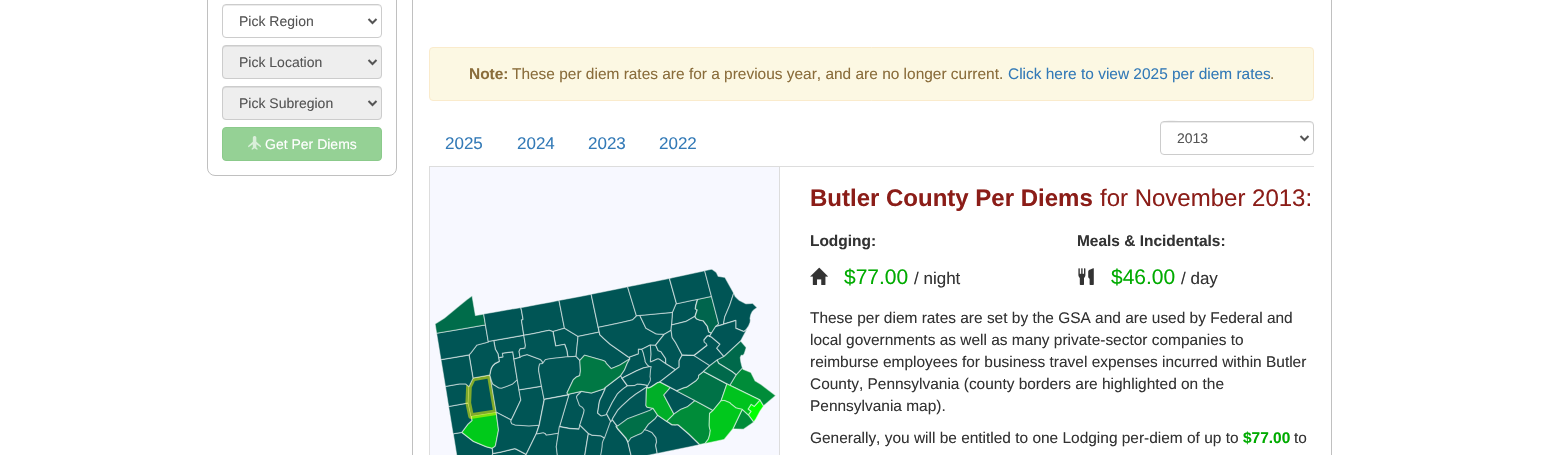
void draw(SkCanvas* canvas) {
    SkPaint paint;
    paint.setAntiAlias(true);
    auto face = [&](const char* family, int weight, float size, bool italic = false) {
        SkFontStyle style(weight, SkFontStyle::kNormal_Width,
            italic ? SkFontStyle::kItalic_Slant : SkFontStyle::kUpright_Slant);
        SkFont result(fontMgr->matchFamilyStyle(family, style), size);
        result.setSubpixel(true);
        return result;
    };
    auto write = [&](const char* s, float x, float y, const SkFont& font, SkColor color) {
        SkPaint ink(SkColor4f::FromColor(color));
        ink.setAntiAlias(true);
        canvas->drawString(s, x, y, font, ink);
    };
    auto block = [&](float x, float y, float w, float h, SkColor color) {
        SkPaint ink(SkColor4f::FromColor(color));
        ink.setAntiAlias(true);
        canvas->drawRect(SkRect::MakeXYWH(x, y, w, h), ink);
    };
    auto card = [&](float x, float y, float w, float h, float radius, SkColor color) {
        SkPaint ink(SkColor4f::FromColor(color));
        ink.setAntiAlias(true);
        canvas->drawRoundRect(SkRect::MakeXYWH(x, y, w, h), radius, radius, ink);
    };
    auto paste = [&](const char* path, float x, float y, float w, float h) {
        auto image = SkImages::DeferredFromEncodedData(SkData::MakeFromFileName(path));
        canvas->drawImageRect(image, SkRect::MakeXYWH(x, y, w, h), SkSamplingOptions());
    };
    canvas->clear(SK_ColorWHITE);
    paint.setStyle(SkPaint::kStroke_Style);
    paint.setStrokeWidth(1);
    paint.setColor(SkColorSetRGB(192, 192, 192));
    canvas->drawRoundRect(SkRect::MakeXYWH(207.5f, -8.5f, 189, 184), 7.5f, 7.5f, paint);
    paint.setStyle(SkPaint::kFill_Style);
    paint.setColor(SkColorSetRGB(236, 236, 236));
    canvas->drawPath(SkPathBuilder().moveTo(226, 6).lineTo(378, 6).cubicTo(380, 6, 381, 7, 381, 9).cubicTo(381, 7, 380, 5, 378, 5).lineTo(225, 5).cubicTo(223, 5, 223, 7, 223, 9).cubicTo(223, 7, 224, 6, 226, 6).close().detach(), paint);
    paint.setStyle(SkPaint::kStroke_Style);
    paint.setColor(SkColorSetRGB(204, 204, 204));
    canvas->drawRoundRect(SkRect::MakeXYWH(222.5f, 4.5f, 159, 33), 3.5f, 3.5f, paint);
    paint.setStrokeWidth(2);
    paint.setColor(SkColorSetRGB(85, 85, 85));
    canvas->drawPath(SkPathBuilder().moveTo(368.5f, 19).lineTo(372.5f, 23).lineTo(376.5f, 19).detach(), paint);
    auto kFont1 = face("Liberation Sans", 400, 14);
    write("Pick Region", 239, 26, kFont1, SkColorSetRGB(85, 85, 85));
    card(222, 45, 160, 34, 4, SkColorSetRGB(238, 238, 238));
    paint.setStyle(SkPaint::kFill_Style);
    paint.setColor(SkColorSetRGB(220, 220, 220));
    canvas->drawPath(SkPathBuilder().moveTo(226, 47).lineTo(378, 47).cubicTo(380, 47, 381, 48, 381, 50).cubicTo(381, 48, 380, 46, 378, 46).lineTo(225, 46).cubicTo(223, 46, 223, 48, 223, 50).cubicTo(223, 48, 224, 47, 226, 47).close().detach(), paint);
    paint.setStyle(SkPaint::kStroke_Style);
    paint.setStrokeWidth(1);
    paint.setColor(SkColorSetRGB(204, 204, 204));
    canvas->drawRoundRect(SkRect::MakeXYWH(222.5f, 45.5f, 159, 33), 3.5f, 3.5f, paint);
    paint.setStrokeWidth(2);
    paint.setColor(SkColorSetRGB(85, 85, 85));
    canvas->drawPath(SkPathBuilder().moveTo(368.5f, 60).lineTo(372.5f, 64).lineTo(376.5f, 60).detach(), paint);
    write("Pick Location", 239, 67, kFont1, SkColorSetRGB(85, 85, 85));
    card(222, 86, 160, 34, 4, SkColorSetRGB(238, 238, 238));
    paint.setStyle(SkPaint::kFill_Style);
    paint.setColor(SkColorSetRGB(220, 220, 220));
    canvas->drawPath(SkPathBuilder().moveTo(226, 88).lineTo(378, 88).cubicTo(380, 88, 381, 89, 381, 91).cubicTo(381, 89, 380, 87, 378, 87).lineTo(225, 87).cubicTo(223, 87, 223, 89, 223, 91).cubicTo(223, 89, 224, 88, 226, 88).close().detach(), paint);
    paint.setStyle(SkPaint::kStroke_Style);
    paint.setStrokeWidth(1);
    paint.setColor(SkColorSetRGB(204, 204, 204));
    canvas->drawRoundRect(SkRect::MakeXYWH(222.5f, 86.5f, 159, 33), 3.5f, 3.5f, paint);
    paint.setStrokeWidth(2);
    paint.setColor(SkColorSetRGB(85, 85, 85));
    canvas->drawPath(SkPathBuilder().moveTo(368.5f, 101).lineTo(372.5f, 105).lineTo(376.5f, 101).detach(), paint);
    write("Pick Subregion", 239, 108, kFont1, SkColorSetRGB(85, 85, 85));
    paint.setStyle(SkPaint::kFill_Style);
    paint.setColor(SkColorSetRGB(149, 209, 149));
    canvas->drawRoundRect(SkRect::MakeXYWH(222.5f, 127.5f, 159, 33), 3.5f, 3.5f, paint);
    paint.setStyle(SkPaint::kStroke_Style);
    paint.setStrokeWidth(1);
    paint.setColor(SkColorSetRGB(139, 202, 139));
    canvas->drawRoundRect(SkRect::MakeXYWH(222.5f, 127.5f, 159, 33), 3.5f, 3.5f, paint);
    paste("pic1.png", 248, 136, 13, 14);
    write("Get Per Diems", 265, 149, kFont1, SK_ColorWHITE);
    paint.setColor(SkColorSetRGB(192, 192, 192));
    canvas->drawRect(SkRect::MakeXYWH(412.5f, -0.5f, 919, 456), paint);
    paint.setStyle(SkPaint::kFill_Style);
    paint.setColor(SkColorSetRGB(252, 248, 227));
    canvas->drawRoundRect(SkRect::MakeXYWH(429.5f, 47.5f, 884, 53), 3.5f, 3.5f, paint);
    paint.setStyle(SkPaint::kStroke_Style);
    paint.setColor(SkColorSetRGB(250, 235, 204));
    canvas->drawRoundRect(SkRect::MakeXYWH(429.5f, 47.5f, 884, 53), 3.5f, 3.5f, paint);
    auto kFont2 = face("Liberation Sans", 700, 15.45f);
    write("Note:", 469, 79, kFont2, SkColorSetRGB(138, 109, 59));
    auto kFont3 = face("Liberation Sans", 400, 15.45f);
    write("These per diem rates are for a previous year, and are no longer current.", 512, 79, kFont3, SkColorSetRGB(138, 109, 59));
    write("Click here to view 2025 per diem rates", 1008, 79, kFont3, SkColorSetRGB(51, 122, 183));
    write(".", 1270, 79, kFont3, SkColorSetRGB(138, 109, 59));
    block(429, 166, 885, 1, SkColorSetRGB(221, 221, 221));
    auto kFont4 = face("Liberation Sans", 400, 17);
    write("2025", 445, 149, kFont4, SkColorSetRGB(51, 122, 183));
    write("2024", 517, 149, kFont4, SkColorSetRGB(51, 122, 183));
    write("2023", 588, 149, kFont4, SkColorSetRGB(51, 122, 183));
    write("2022", 659, 149, kFont4, SkColorSetRGB(51, 122, 183));
    paint.setStyle(SkPaint::kFill_Style);
    paint.setColor(SkColorSetRGB(236, 236, 236));
    canvas->drawPath(SkPathBuilder().moveTo(1164, 123).lineTo(1310, 123).cubicTo(1312, 123, 1313, 124, 1313, 126).cubicTo(1313, 124, 1313, 123, 1311, 122).lineTo(1188, 122).cubicTo(1181, 122, 1161, 117, 1161, 126).cubicTo(1161, 124, 1162, 123, 1164, 123).close().detach(), paint);
    paint.setStyle(SkPaint::kStroke_Style);
    paint.setColor(SkColorSetRGB(204, 204, 204));
    canvas->drawRoundRect(SkRect::MakeXYWH(1160.5f, 121.5f, 153, 33), 3.5f, 3.5f, paint);
    paint.setStrokeWidth(2);
    paint.setColor(SkColorSetRGB(85, 85, 85));
    canvas->drawPath(SkPathBuilder().moveTo(1300.5f, 136).lineTo(1304.5f, 140).lineTo(1308.5f, 136).detach(), paint);
    write("2013", 1177, 143, kFont1, SkColorSetRGB(85, 85, 85));
    paint.setStyle(SkPaint::kFill_Style);
    paint.setColor(SkColorSetRGB(247, 248, 255));
    canvas->drawPath(SkPathBuilder().moveTo(429, 167).lineTo(780, 167).lineTo(780, 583).cubicTo(780, 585, 778, 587, 776, 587).lineTo(433, 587).cubicTo(431, 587, 429, 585, 429, 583).close().detach(), paint);
    paint.setColor(SkColorSetRGB(221, 221, 221));
    canvas->drawPath(SkPathBuilder(SkPathFillType::kEvenOdd).moveTo(429, 167).lineTo(780, 167).lineTo(780, 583).cubicTo(780, 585, 778, 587, 776, 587).lineTo(433, 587).cubicTo(431, 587, 429, 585, 429, 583).close().moveTo(430, 167).lineTo(779, 167).lineTo(779, 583).cubicTo(779, 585, 778, 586, 776, 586).lineTo(433, 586).cubicTo(431, 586, 430, 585, 430, 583).close().detach(), paint);
    paste("pic2.png", 435, 269, 341, 186);
    auto kFont5 = face("Liberation Sans", 700, 24);
    write("Butler County Per Diems", 810, 206, kFont5, SkColorSetRGB(139, 29, 24));
    auto kFont6 = face("Liberation Sans", 400, 24);
    write("for November 2013:", 1100, 206, kFont6, SkColorSetRGB(139, 29, 24));
    write("Lodging:", 810, 246, kFont2, SkColorSetRGB(51, 51, 51));
    paste("pic3.png", 810, 267, 18, 18);
    auto kFont7 = face("Liberation Sans", 400, 21);
    write("$77.00", 844, 284, kFont7, SkColorSetRGB(0, 171, 0));
    write("/ night", 914, 284, kFont4, SkColorSetRGB(51, 51, 51));
    write("Meals & Incidentals:", 1077, 246, kFont2, SkColorSetRGB(51, 51, 51));
    paste("pic4.png", 1078, 268, 16, 17);
    write("$46.00", 1111, 284, kFont7, SkColorSetRGB(0, 171, 0));
    write("/ day", 1181, 284, kFont4, SkColorSetRGB(51, 51, 51));
    write("These per diem rates are set by the GSA and are used by Federal and", 810, 323, kFont3, SkColorSetRGB(51, 51, 51));
    write("local governments as well as many private-sector companies to", 810, 345, kFont3, SkColorSetRGB(51, 51, 51));
    write("reimburse employees for business travel expenses incurred within Butler", 810, 367, kFont3, SkColorSetRGB(51, 51, 51));
    write("County, Pennsylvania (county borders are highlighted on the", 810, 389, kFont3, SkColorSetRGB(51, 51, 51));
    write("Pennsylvania map).", 810, 411, kFont3, SkColorSetRGB(51, 51, 51));
    write("Generally, you will be entitled to one Lodging per-diem of up to", 810, 443, kFont3, SkColorSetRGB(51, 51, 51));
    write("$77.00", 1243, 443, kFont2, SkColorSetRGB(0, 171, 0));
    write("to", 1294, 443, kFont3, SkColorSetRGB(51, 51, 51));
}
